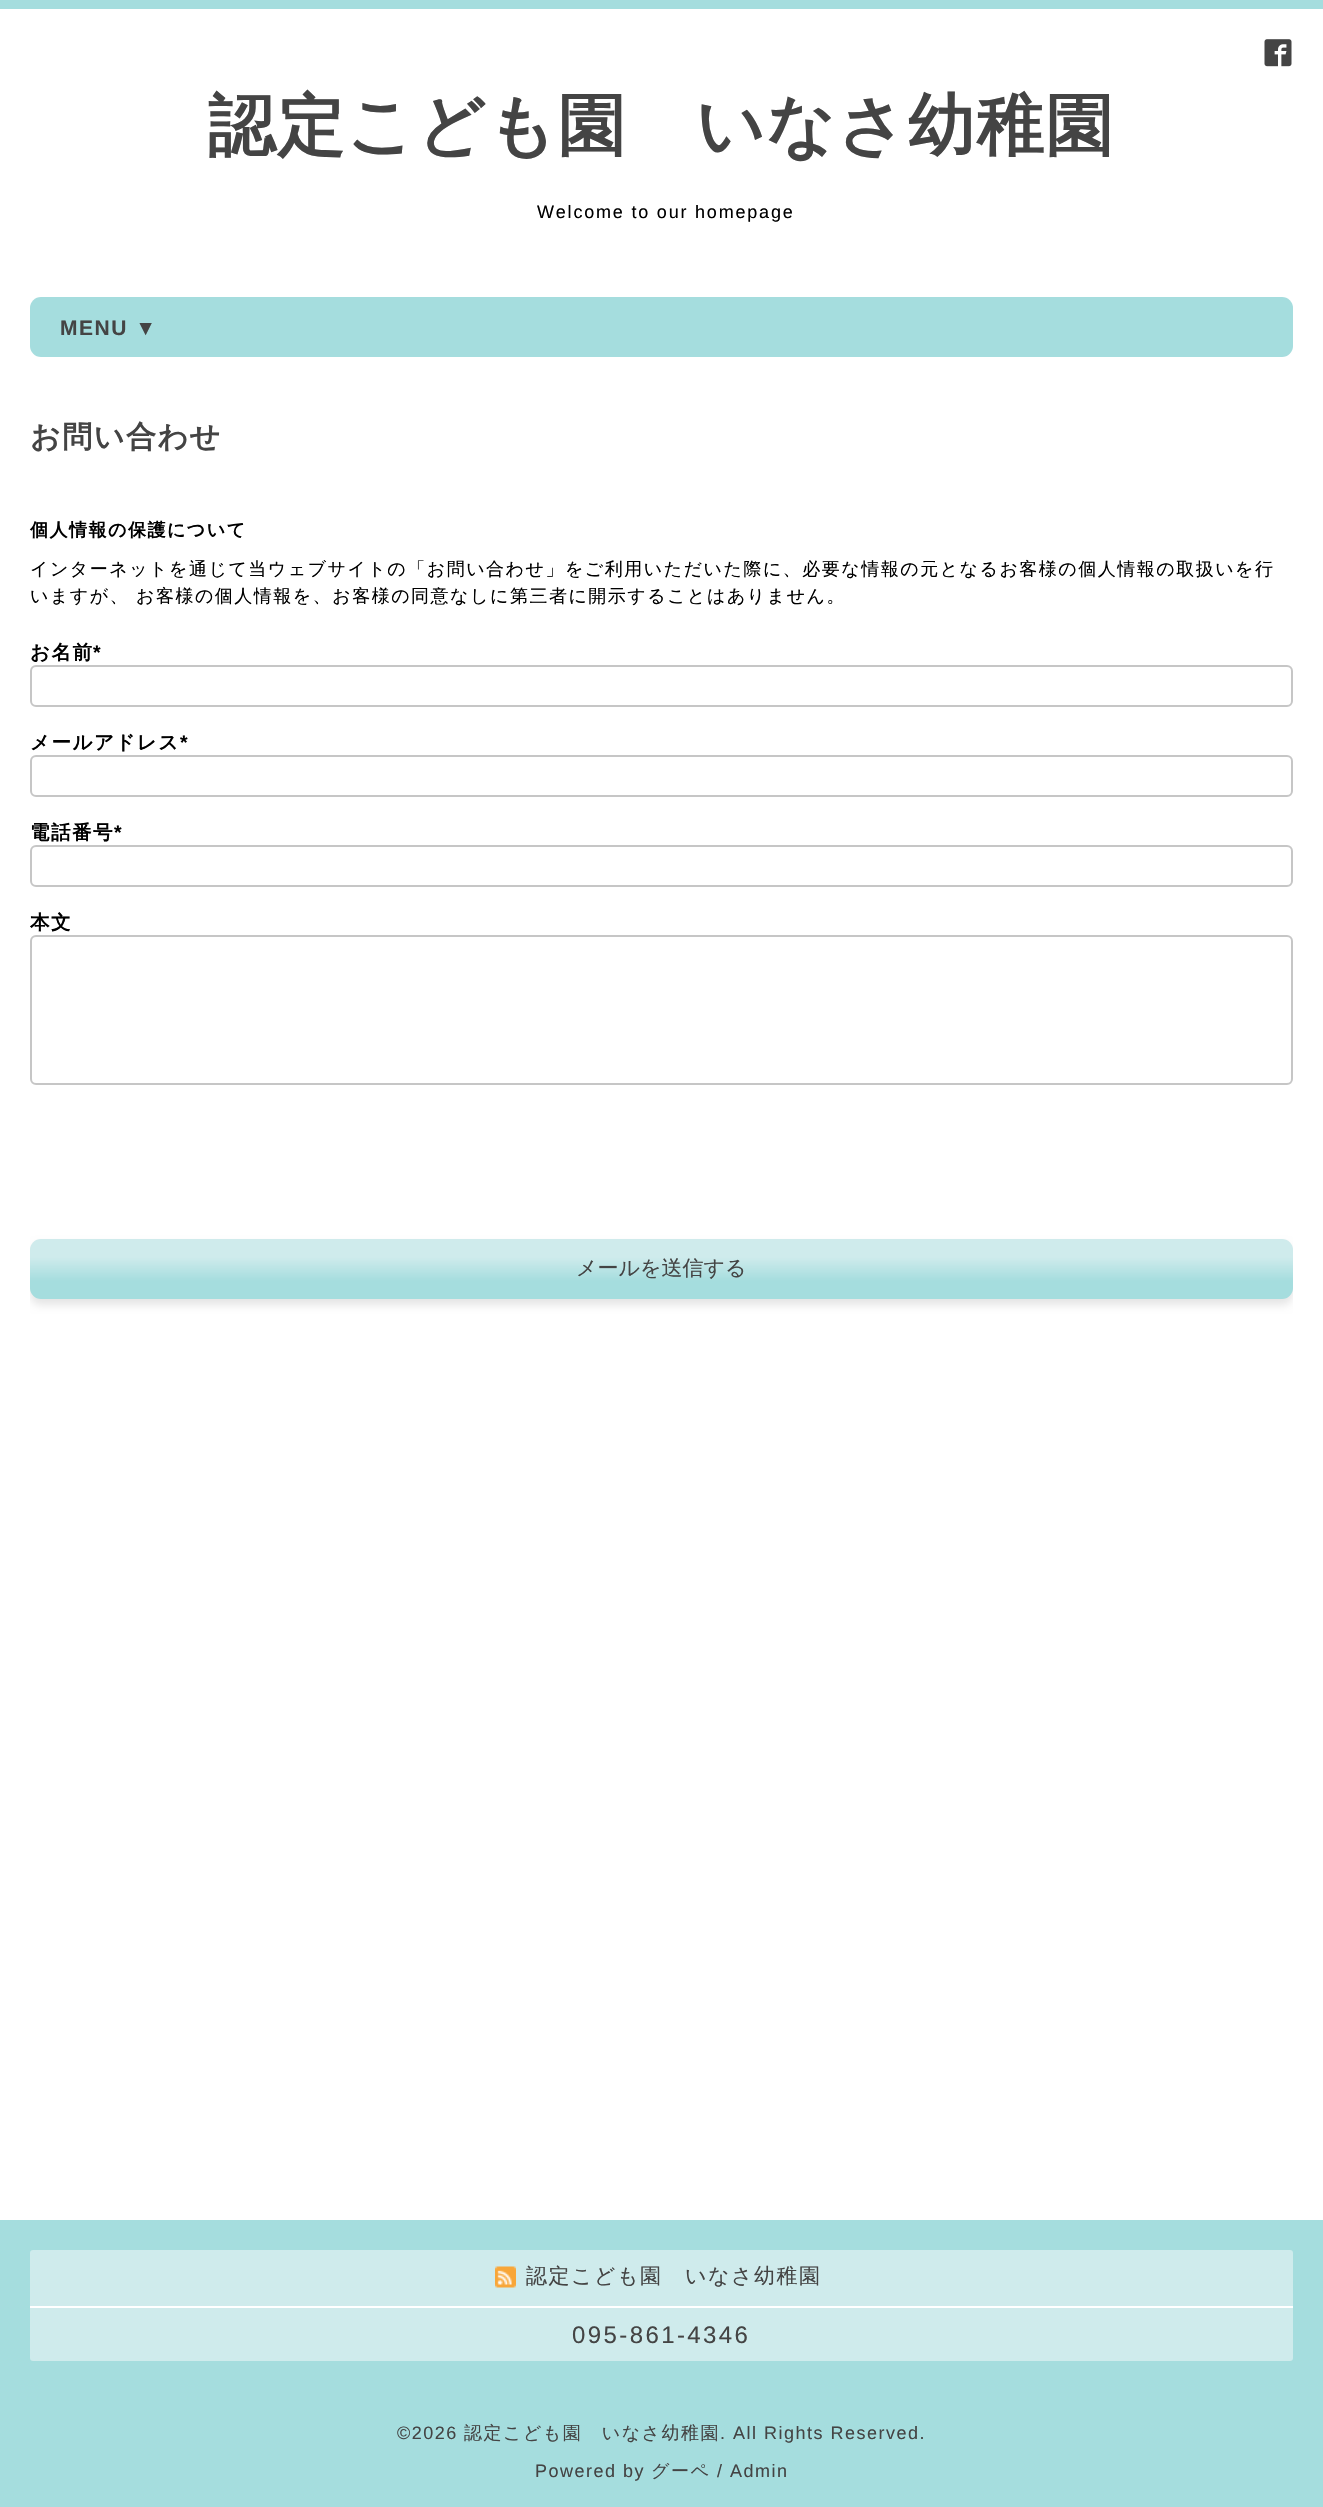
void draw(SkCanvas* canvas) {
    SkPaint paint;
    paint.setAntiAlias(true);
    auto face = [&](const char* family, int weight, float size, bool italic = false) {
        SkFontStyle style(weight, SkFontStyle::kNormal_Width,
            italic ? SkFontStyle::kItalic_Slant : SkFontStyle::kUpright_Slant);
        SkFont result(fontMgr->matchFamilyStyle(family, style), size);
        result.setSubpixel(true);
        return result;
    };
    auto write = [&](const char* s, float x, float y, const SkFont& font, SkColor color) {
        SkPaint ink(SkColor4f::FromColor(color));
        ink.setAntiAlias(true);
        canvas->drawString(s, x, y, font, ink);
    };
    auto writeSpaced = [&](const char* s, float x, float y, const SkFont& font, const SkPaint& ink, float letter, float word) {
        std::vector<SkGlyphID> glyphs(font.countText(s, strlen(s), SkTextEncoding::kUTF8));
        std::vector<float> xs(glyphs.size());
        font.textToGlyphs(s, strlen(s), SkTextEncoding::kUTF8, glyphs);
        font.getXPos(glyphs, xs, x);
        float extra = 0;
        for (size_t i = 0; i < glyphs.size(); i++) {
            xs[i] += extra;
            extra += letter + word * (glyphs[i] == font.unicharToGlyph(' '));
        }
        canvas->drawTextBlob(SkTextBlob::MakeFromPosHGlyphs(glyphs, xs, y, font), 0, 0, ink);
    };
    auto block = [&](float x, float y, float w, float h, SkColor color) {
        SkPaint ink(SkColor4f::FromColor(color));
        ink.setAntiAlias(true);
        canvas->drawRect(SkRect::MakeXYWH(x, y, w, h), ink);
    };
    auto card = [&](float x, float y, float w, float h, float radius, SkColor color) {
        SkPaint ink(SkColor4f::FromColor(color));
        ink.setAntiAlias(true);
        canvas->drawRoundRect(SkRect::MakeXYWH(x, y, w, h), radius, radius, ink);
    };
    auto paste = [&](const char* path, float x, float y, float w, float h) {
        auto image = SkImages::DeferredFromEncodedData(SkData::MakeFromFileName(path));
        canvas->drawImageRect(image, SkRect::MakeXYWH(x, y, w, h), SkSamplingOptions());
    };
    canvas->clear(SK_ColorWHITE);
    block(0, 0, 1323, 9, SkColorSetRGB(165, 221, 222));
    paste("pic1.png", 1264, 39, 28, 28);
    auto kFont1 = face("WenQuanYi Zen Hei", 700, 67.5f);
    paint.setColor(SkColorSetRGB(68, 68, 68));
    writeSpaced("認定こども園　いなさ幼稚園", 208, 149, kFont1, paint, 1.5f, 0);
    auto kFont2 = face("Liberation Sans", 400, 18);
    paint.setColor(SK_ColorBLACK);
    writeSpaced("Welcome to our homepage", 537, 218, kFont2, paint, 1.8f, 0);
    card(30, 297, 1263, 60, 11, SkColorSetRGB(165, 221, 222));
    auto kFont3 = face("Liberation Sans", 700, 21);
    paint.setColor(SkColorSetRGB(68, 68, 68));
    writeSpaced("MENU ▼", 60, 335, kFont3, paint, 1.5f, 0);
    auto kFont4 = face("WenQuanYi Zen Hei", 700, 30);
    writeSpaced("お問い合わせ", 30, 447, kFont4, paint, 1.5f, 0);
    auto kFont5 = face("WenQuanYi Zen Hei", 700, 18);
    paint.setColor(SK_ColorBLACK);
    writeSpaced("個人情報の保護について", 30, 536, kFont5, paint, 1.5f, 0);
    auto kFont6 = face("WenQuanYi Zen Hei", 500, 18);
    writeSpaced("インターネットを通じて当ウェブサイトの「お問い合わせ」をご利用いただいた際に、必要な情報の元となるお客様の個人情報の取扱いを行", 30, 575, kFont6, paint, 1.5f, 0);
    writeSpaced("いますが、", 30, 602, kFont6, paint, 1.5f, 0);
    writeSpaced("お客様の個人情報を、お客様の同意なしに第三者に開示することはありません。", 136, 602, kFont6, paint, 1.5f, 0);
    auto kFont7 = face("WenQuanYi Zen Hei", 700, 19.5f);
    writeSpaced("お名前", 30, 659, kFont7, paint, 1.5f, 0);
    auto kFont8 = face("Liberation Sans", 700, 19.5f);
    writeSpaced("*", 93, 659, kFont8, paint, 1.5f, 0);
    paint.setStyle(SkPaint::kStroke_Style);
    paint.setStrokeWidth(2);
    paint.setColor(SkColorSetRGB(198, 198, 198));
    canvas->drawRoundRect(SkRect::MakeXYWH(31, 666, 1261, 40), 5, 5, paint);
    paint.setStyle(SkPaint::kFill_Style);
    paint.setColor(SK_ColorBLACK);
    writeSpaced("メールアドレス", 30, 749, kFont7, paint, 1.5f, 0);
    writeSpaced("*", 180, 749, kFont8, paint, 1.5f, 0);
    paint.setStyle(SkPaint::kStroke_Style);
    paint.setColor(SkColorSetRGB(198, 198, 198));
    canvas->drawRoundRect(SkRect::MakeXYWH(31, 756, 1261, 40), 5, 5, paint);
    paint.setStyle(SkPaint::kFill_Style);
    paint.setColor(SK_ColorBLACK);
    writeSpaced("電話番号", 30, 839, kFont7, paint, 1.5f, 0);
    writeSpaced("*", 114, 839, kFont8, paint, 1.5f, 0);
    paint.setStyle(SkPaint::kStroke_Style);
    paint.setColor(SkColorSetRGB(198, 198, 198));
    canvas->drawRoundRect(SkRect::MakeXYWH(31, 846, 1261, 40), 5, 5, paint);
    paint.setStyle(SkPaint::kFill_Style);
    paint.setColor(SK_ColorBLACK);
    writeSpaced("本文", 30, 929, kFont7, paint, 1.5f, 0);
    paint.setStyle(SkPaint::kStroke_Style);
    paint.setColor(SkColorSetRGB(198, 198, 198));
    canvas->drawRoundRect(SkRect::MakeXYWH(31, 936, 1261, 148), 5, 5, paint);
    canvas->save();
    canvas->clipRect(SkRect::MakeXYWH(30, 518, 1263, 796));
    paint.setStyle(SkPaint::kFill_Style);
    paint.setColor(SkColorSetARGB(26, 0, 0, 0));
    paint.setMaskFilter(SkMaskFilter::MakeBlur(kNormal_SkBlurStyle, 4));
    canvas->drawRoundRect(SkRect::MakeXYWH(30, 1245, 1263, 60), 11, 11, paint);
    paint.setMaskFilter(nullptr);
    canvas->restore();
    {
        const SkColor colors[] = {SkColorSetRGB(207, 235, 236), SkColorSetRGB(207, 235, 236), SkColorSetRGB(165, 221, 222), SkColorSetRGB(165, 221, 222)};
        const float stops[] = {0, 0.3f, 0.7f, 1};
        const SkPoint ends[] = {{30, 1239}, {30, 1299}};
        paint.setShader(SkGradientShader::MakeLinear(ends, colors, stops, 4, SkTileMode::kClamp));
        paint.setAlpha(255);
    }
    canvas->drawRoundRect(SkRect::MakeXYWH(30, 1239, 1263, 60), 11, 11, paint);
    auto kFont9 = face("WenQuanYi Zen Hei", 500, 21);
    write("メールを送信する", 576, 1275, kFont9, SkColorSetRGB(68, 68, 68));
    block(0, 2220, 1323, 287, SkColorSetRGB(165, 221, 222));
    card(30, 2250, 1263, 111, 3, SkColorSetRGB(207, 235, 236));
    paste("pic2.png", 495, 2266, 21, 22);
    paint.setShader(nullptr);
    paint.setColor(SkColorSetRGB(68, 68, 68));
    writeSpaced("認定こども園　いなさ幼稚園", 526, 2283, kFont9, paint, 1.5f, 0);
    block(30, 2306, 1263, 2, SK_ColorWHITE);
    auto kFont10 = face("Liberation Sans", 400, 24);
    writeSpaced("095-861-4346", 572, 2343, kFont10, paint, 2.4f, 0);
    writeSpaced("©2026", 397, 2439, kFont2, paint, 1.5f, 0);
    writeSpaced("認定こども園　いなさ幼稚園", 464, 2439, kFont6, paint, 1.5f, 0);
    writeSpaced(". All Rights Reserved.", 720, 2439, kFont2, paint, 1.5f, 0);
    writeSpaced("Powered by", 535, 2477, kFont2, paint, 1.5f, 0);
    writeSpaced("グーペ", 651, 2477, kFont6, paint, 1.5f, 0);
    writeSpaced("/ Admin", 717, 2477, kFont2, paint, 1.5f, 0);
}
